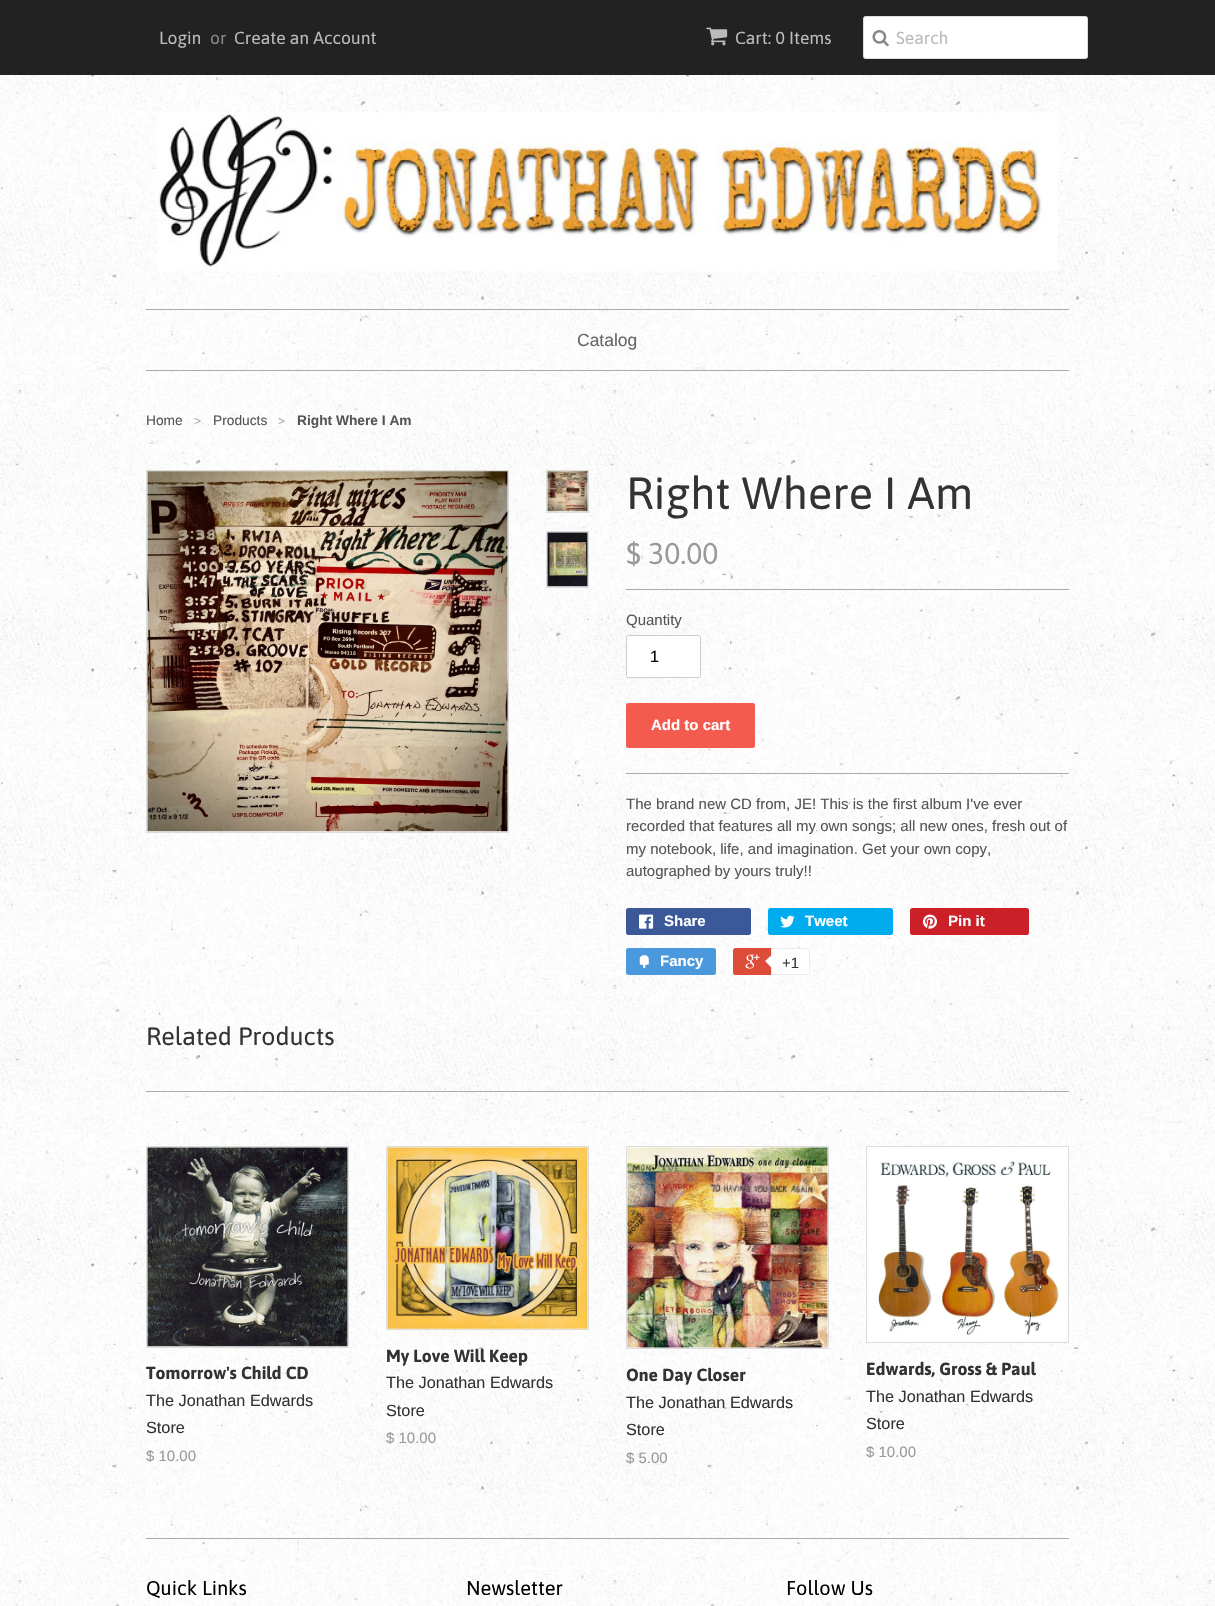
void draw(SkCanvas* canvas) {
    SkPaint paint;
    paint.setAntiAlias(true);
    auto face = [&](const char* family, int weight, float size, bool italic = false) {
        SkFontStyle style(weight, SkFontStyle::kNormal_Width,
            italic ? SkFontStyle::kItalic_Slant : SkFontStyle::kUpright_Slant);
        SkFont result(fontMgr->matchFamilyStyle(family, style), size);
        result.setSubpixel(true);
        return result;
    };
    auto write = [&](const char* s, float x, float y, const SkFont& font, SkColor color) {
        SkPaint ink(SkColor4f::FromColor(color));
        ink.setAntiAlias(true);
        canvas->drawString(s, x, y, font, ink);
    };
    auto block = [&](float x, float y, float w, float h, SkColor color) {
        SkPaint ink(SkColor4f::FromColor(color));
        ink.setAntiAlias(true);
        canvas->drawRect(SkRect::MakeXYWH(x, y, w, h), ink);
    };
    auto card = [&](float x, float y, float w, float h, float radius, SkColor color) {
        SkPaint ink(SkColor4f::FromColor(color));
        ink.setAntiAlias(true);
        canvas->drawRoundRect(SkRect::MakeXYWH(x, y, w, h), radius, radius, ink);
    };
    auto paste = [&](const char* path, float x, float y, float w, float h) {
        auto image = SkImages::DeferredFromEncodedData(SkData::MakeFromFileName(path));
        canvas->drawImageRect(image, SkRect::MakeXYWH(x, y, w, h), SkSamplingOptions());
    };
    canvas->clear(SK_ColorWHITE);
    paste("pic1.png", 0, 75, 1215, 1531);
    block(0, 0, 1215, 75, SkColorSetRGB(34, 34, 34));
    auto kFont1 = face("Asap", 400, 17.5f);
    write("Login", 159, 44, kFont1, SkColorSetRGB(187, 187, 187));
    write("or", 210, 44, kFont1, SkColorSetRGB(136, 136, 136));
    write("Create an Account", 234, 44, kFont1, SkColorSetRGB(187, 187, 187));
    paste("pic2.png", 706, 27, 22, 19);
    write("Cart: 0 Items", 735, 44, kFont1, SkColorSetRGB(187, 187, 187));
    paint.setColor(SK_ColorWHITE);
    canvas->drawRoundRect(SkRect::MakeXYWH(863.5f, 16.5f, 224, 42), 2, 2, paint);
    paint.setStyle(SkPaint::kStroke_Style);
    paint.setStrokeWidth(1);
    paint.setColor(SkColorSetRGB(221, 221, 221));
    canvas->drawRoundRect(SkRect::MakeXYWH(863.5f, 16.5f, 224, 42), 2, 2, paint);
    paste("pic3.png", 872, 30, 17, 17);
    write("Search", 896, 44, kFont1, SkColorSetRGB(187, 187, 187));
    paste("pic4.png", 157, 112, 901, 160);
    block(146, 309, 923, 1, SkColorSetRGB(170, 170, 170));
    block(146, 370, 923, 1, SkColorSetRGB(170, 170, 170));
    auto kFont2 = face("Liberation Sans", 400, 17.5f);
    write("Catalog", 577, 346, kFont2, SkColorSetRGB(102, 102, 102));
    auto kFont3 = face("Liberation Sans", 400, 13.75f);
    write("Home", 146, 425, kFont3, SkColorSetRGB(85, 85, 85));
    auto kFont4 = face("Liberation Sans", 400, 12);
    write(">", 194, 425, kFont4, SkColorSetRGB(168, 168, 168));
    write("Products", 213, 425, kFont3, SkColorSetRGB(85, 85, 85));
    write(">", 278, 425, kFont4, SkColorSetRGB(168, 168, 168));
    auto kFont5 = face("Liberation Sans", 700, 13.75f);
    write("Right Where I Am", 297, 425, kFont5, SkColorSetRGB(85, 85, 85));
    canvas->drawRect(SkRect::MakeXYWH(146.5f, 470.5f, 362, 362), paint);
    paste("pic5.png", 147, 471, 361, 361);
    canvas->drawRect(SkRect::MakeXYWH(546.5f, 470.5f, 42, 42), paint);
    paste("pic6.png", 547, 471, 41, 41);
    canvas->drawRect(SkRect::MakeXYWH(546.5f, 531.5f, 42, 56), paint);
    paste("pic7.png", 547, 532, 41, 55);
    auto kFont6 = face("Asap", 400, 45);
    write("Right Where I Am", 626, 509, kFont6, SkColorSetRGB(51, 51, 51));
    auto kFont7 = face("Asap", 400, 30);
    write("$ 30.00", 626, 564, kFont7, SkColorSetRGB(153, 153, 153));
    block(626, 589, 443, 1, SkColorSetRGB(170, 170, 170));
    block(626, 773, 443, 1, SkColorSetRGB(170, 170, 170));
    auto kFont8 = face("Liberation Sans", 400, 15);
    write("Quantity", 626, 625, kFont8, SkColorSetRGB(85, 85, 85));
    paint.setStyle(SkPaint::kFill_Style);
    paint.setColor(SK_ColorWHITE);
    canvas->drawRoundRect(SkRect::MakeXYWH(626.5f, 635.5f, 74, 42), 2, 2, paint);
    paint.setStyle(SkPaint::kStroke_Style);
    paint.setColor(SkColorSetRGB(204, 204, 204));
    canvas->drawRoundRect(SkRect::MakeXYWH(626.5f, 635.5f, 74, 42), 2, 2, paint);
    auto kFont9 = face("Liberation Sans", 400, 16.25f);
    write("1", 650, 662, kFont9, SK_ColorBLACK);
    card(626, 703, 129, 45, 2.5f, SkColorSetRGB(244, 91, 79));
    auto kFont10 = face("Liberation Sans", 700, 15);
    write("Add to cart", 651, 730, kFont10, SK_ColorWHITE);
    write("The brand new CD from, JE! This is the first album I've ever", 626, 809, kFont8, SkColorSetRGB(85, 85, 85));
    write("recorded that features all my own songs; all new ones, fresh out of", 626, 831, kFont8, SkColorSetRGB(85, 85, 85));
    write("my notebook, life, and imagination. Get your own copy,", 626, 854, kFont8, SkColorSetRGB(85, 85, 85));
    write("autographed by yours truly!!", 626, 876, kFont8, SkColorSetRGB(85, 85, 85));
    card(626, 908, 125, 27, 2.5f, SkColorSetRGB(59, 89, 152));
    paste("pic8.png", 639, 914, 15, 15);
    write("Share", 664, 926, kFont10, SK_ColorWHITE);
    card(768, 908, 125, 27, 2.5f, SkColorSetRGB(0, 172, 237));
    paste("pic9.png", 780, 915, 15, 13);
    write("Tweet", 805, 926, kFont10, SK_ColorWHITE);
    card(910, 908, 119, 27, 2.5f, SkColorSetRGB(203, 32, 39));
    paste("pic10.png", 922, 914, 15, 15);
    write("Pin it", 948, 926, kFont10, SK_ColorWHITE);
    card(626, 948, 90, 27, 2.5f, SkColorSetRGB(73, 153, 220));
    paste("pic11.png", 639, 955, 10, 14);
    write("Fancy", 660, 966, kFont10, SK_ColorWHITE);
    card(733, 948, 75, 27, 2.5f, SkColorSetRGB(221, 75, 57));
    paste("pic12.png", 745, 954, 15, 15);
    paint.setStyle(SkPaint::kFill_Style);
    paint.setColor(SK_ColorWHITE);
    canvas->drawPath(SkPathBuilder().moveTo(771.5f, 948.5f).lineTo(807.5f, 948.5f).cubicTo(808.5f, 948.5f, 809.5f, 949.5f, 809.5f, 950.5f).lineTo(809.5f, 972.5f).cubicTo(809.5f, 973.5f, 808.5f, 974.5f, 807.5f, 974.5f).lineTo(771.5f, 974.5f).close().detach(), paint);
    paint.setStyle(SkPaint::kStroke_Style);
    paint.setColor(SkColorSetRGB(236, 236, 236));
    canvas->drawPath(SkPathBuilder().moveTo(771.5f, 948.5f).lineTo(807.5f, 948.5f).cubicTo(808.5f, 948.5f, 809.5f, 949.5f, 809.5f, 950.5f).lineTo(809.5f, 972.5f).cubicTo(809.5f, 973.5f, 808.5f, 974.5f, 807.5f, 974.5f).lineTo(771.5f, 974.5f).close().detach(), paint);
    paint.setStyle(SkPaint::kFill_Style);
    canvas->drawPath(SkPathBuilder().moveTo(772.5f, 954).lineTo(772.5f, 969).lineTo(765, 961).close().detach(), paint);
    paint.setColor(SK_ColorWHITE);
    canvas->drawPath(SkPathBuilder().moveTo(774, 954).lineTo(774, 969).lineTo(766, 961).close().detach(), paint);
    write("+1", 782, 968, kFont8, SkColorSetRGB(51, 51, 51));
    block(146, 1091, 923, 1, SkColorSetRGB(170, 170, 170));
    auto kFont11 = face("Asap", 400, 25);
    write("Related Products", 146, 1045, kFont11, SkColorSetRGB(51, 51, 51));
    paint.setStyle(SkPaint::kStroke_Style);
    paint.setColor(SkColorSetRGB(221, 221, 221));
    canvas->drawRect(SkRect::MakeXYWH(146.5f, 1146.5f, 202, 201), paint);
    paste("pic13.png", 147, 1147, 201, 200);
    auto kFont12 = face("Asap", 700, 17.5f);
    write("Tomorrow's Child CD", 146, 1379, kFont12, SkColorSetRGB(51, 51, 51));
    write("The Jonathan Edwards", 146, 1406, kFont9, SkColorSetRGB(51, 51, 51));
    write("Store", 146, 1433, kFont9, SkColorSetRGB(51, 51, 51));
    write("$ 10.00", 146, 1461, kFont8, SkColorSetRGB(153, 153, 153));
    canvas->drawRect(SkRect::MakeXYWH(386.5f, 1146.5f, 202, 183), paint);
    paste("pic14.png", 387, 1147, 201, 182);
    write("My Love Will Keep", 386, 1362, kFont12, SkColorSetRGB(51, 51, 51));
    write("The Jonathan Edwards", 386, 1388, kFont9, SkColorSetRGB(51, 51, 51));
    write("Store", 386, 1416, kFont9, SkColorSetRGB(51, 51, 51));
    write("$ 10.00", 386, 1443, kFont8, SkColorSetRGB(153, 153, 153));
    canvas->drawRect(SkRect::MakeXYWH(626.5f, 1146.5f, 202, 202), paint);
    paste("pic15.png", 627, 1147, 201, 201);
    write("One Day Closer", 626, 1381, kFont12, SkColorSetRGB(51, 51, 51));
    write("The Jonathan Edwards", 626, 1408, kFont9, SkColorSetRGB(51, 51, 51));
    write("Store", 626, 1435, kFont9, SkColorSetRGB(51, 51, 51));
    write("$ 5.00", 626, 1463, kFont8, SkColorSetRGB(153, 153, 153));
    canvas->drawRect(SkRect::MakeXYWH(866.5f, 1146.5f, 202, 196), paint);
    paste("pic16.png", 867, 1147, 201, 194);
    write("Edwards, Gross & Paul", 866, 1375, kFont12, SkColorSetRGB(51, 51, 51));
    write("The Jonathan Edwards", 866, 1402, kFont9, SkColorSetRGB(51, 51, 51));
    write("Store", 866, 1429, kFont9, SkColorSetRGB(51, 51, 51));
    write("$ 10.00", 866, 1457, kFont8, SkColorSetRGB(153, 153, 153));
    block(146, 1538, 923, 1, SkColorSetRGB(170, 170, 170));
    auto kFont13 = face("Asap", 400, 20);
    write("Quick Links", 146, 1595, kFont13, SK_ColorBLACK);
    write("Newsletter", 466, 1595, kFont13, SK_ColorBLACK);
    write("Follow Us", 786, 1595, kFont13, SK_ColorBLACK);
}
